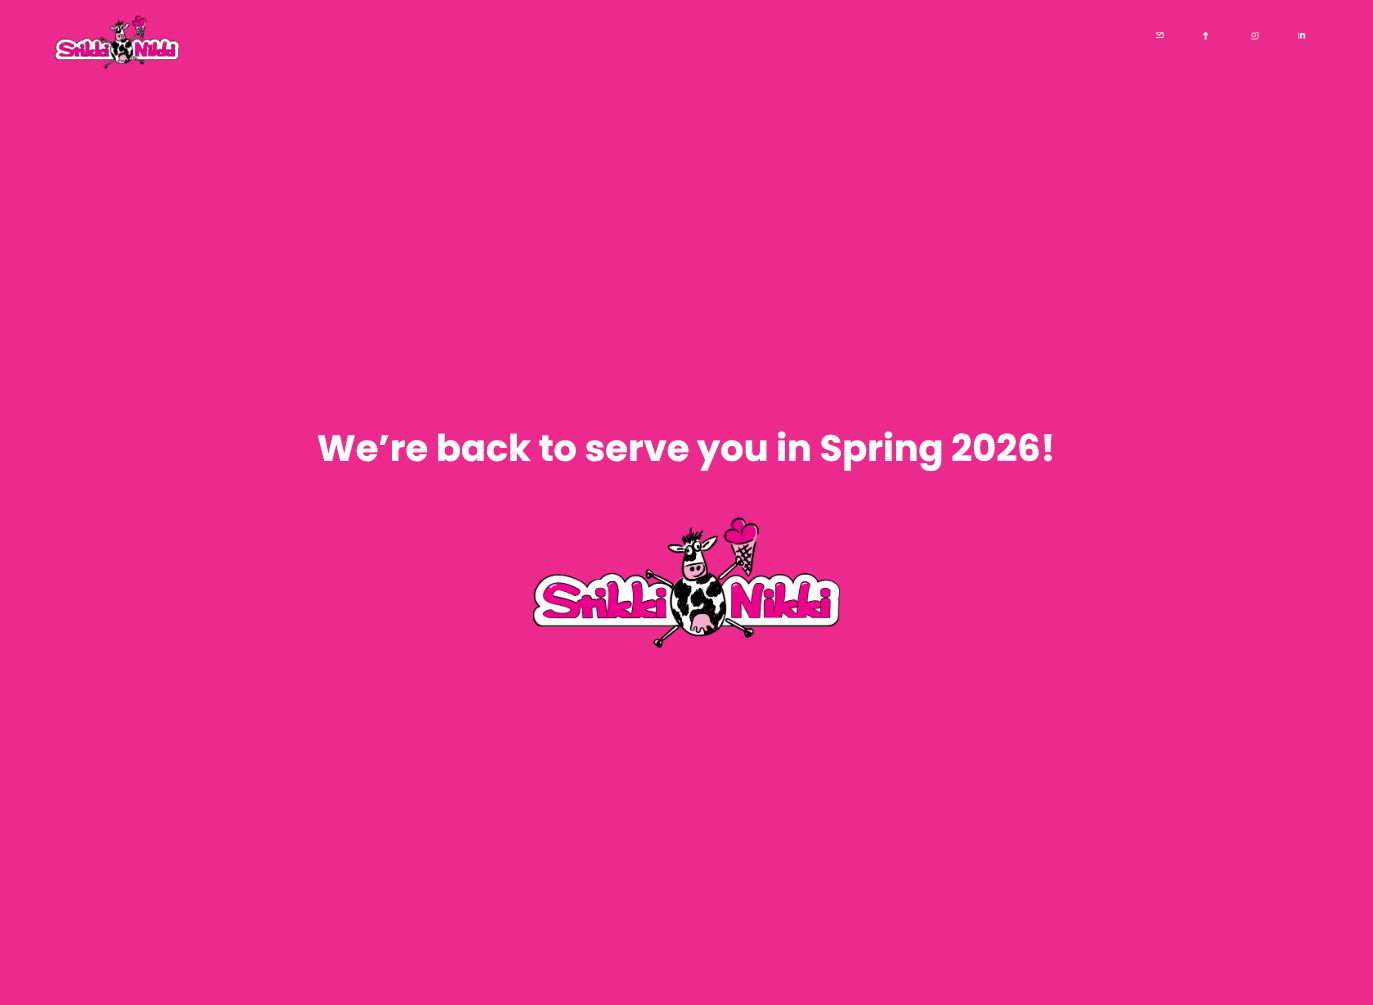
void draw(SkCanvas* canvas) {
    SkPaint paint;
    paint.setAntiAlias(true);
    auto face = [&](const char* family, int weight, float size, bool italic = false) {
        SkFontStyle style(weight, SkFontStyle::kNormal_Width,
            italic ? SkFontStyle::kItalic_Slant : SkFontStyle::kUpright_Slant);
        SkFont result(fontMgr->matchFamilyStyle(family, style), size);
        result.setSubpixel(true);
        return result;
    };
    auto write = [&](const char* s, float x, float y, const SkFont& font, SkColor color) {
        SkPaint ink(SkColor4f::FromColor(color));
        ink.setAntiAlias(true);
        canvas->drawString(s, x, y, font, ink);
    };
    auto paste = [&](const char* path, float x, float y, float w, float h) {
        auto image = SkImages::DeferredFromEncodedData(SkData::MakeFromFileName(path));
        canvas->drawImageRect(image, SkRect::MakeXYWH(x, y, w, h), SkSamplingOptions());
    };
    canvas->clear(SkColorSetRGB(236, 41, 140));
    paste("pic1.png", 54, 15, 125, 54);
    paste("pic2.png", 1156, 32, 8, 6);
    paste("pic3.png", 1203, 32, 6, 8);
    paste("pic4.png", 1251, 32, 8, 8);
    paste("pic5.png", 1298, 32, 8, 7);
    auto kFont1 = face("Poppins", 700, 36.75f);
    write("We’re back to serve you in Spring 2026!", 317, 461, kFont1, SK_ColorWHITE);
    paste("pic6.png", 533, 517, 307, 132);
}
